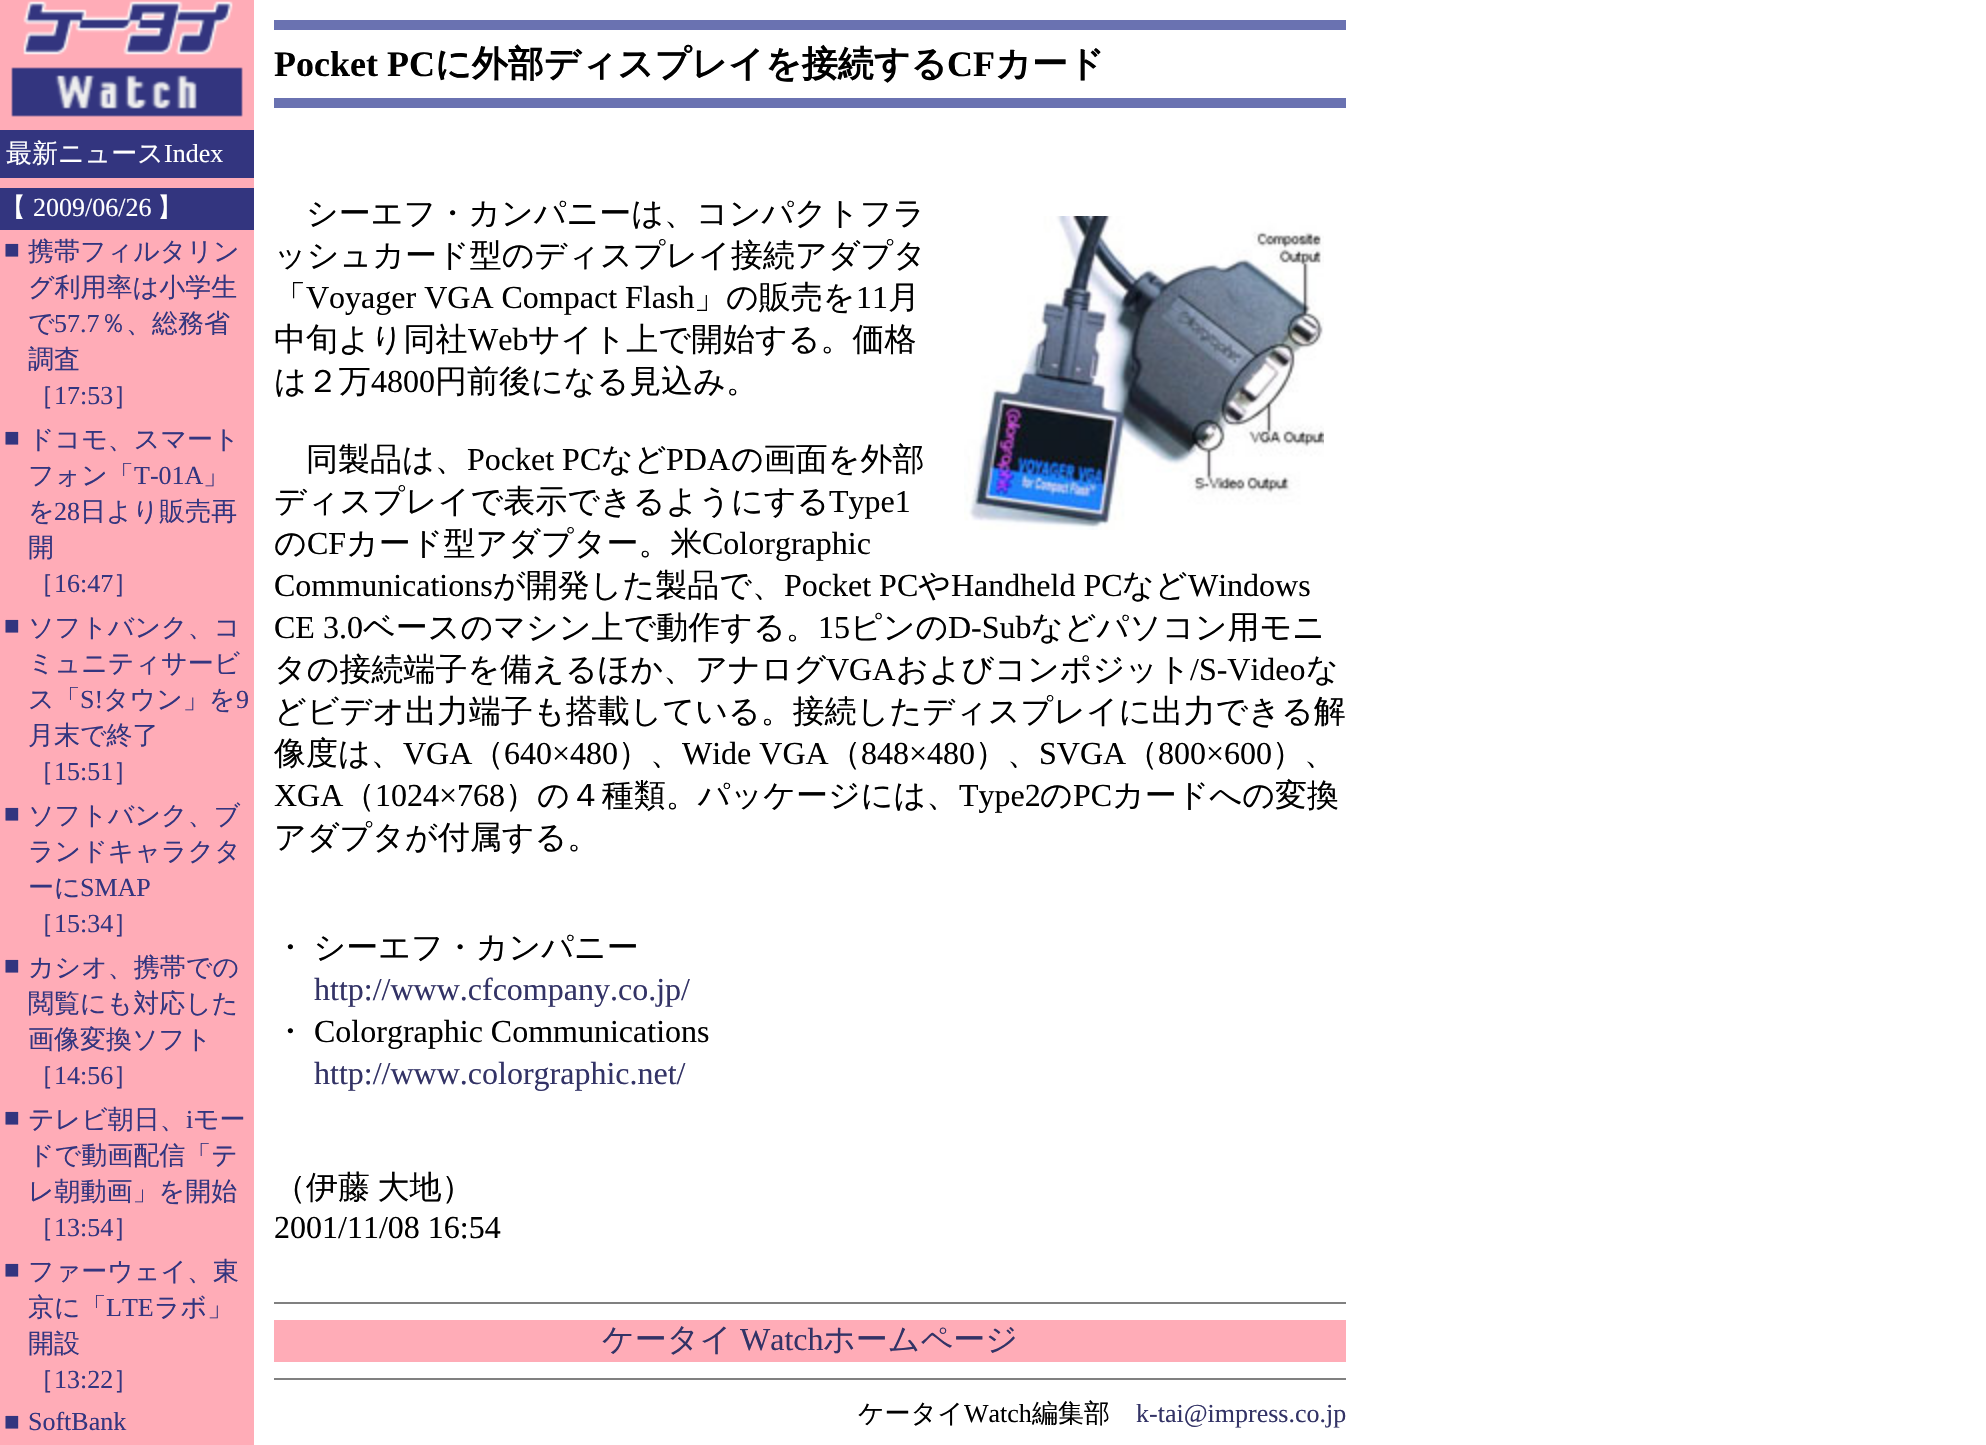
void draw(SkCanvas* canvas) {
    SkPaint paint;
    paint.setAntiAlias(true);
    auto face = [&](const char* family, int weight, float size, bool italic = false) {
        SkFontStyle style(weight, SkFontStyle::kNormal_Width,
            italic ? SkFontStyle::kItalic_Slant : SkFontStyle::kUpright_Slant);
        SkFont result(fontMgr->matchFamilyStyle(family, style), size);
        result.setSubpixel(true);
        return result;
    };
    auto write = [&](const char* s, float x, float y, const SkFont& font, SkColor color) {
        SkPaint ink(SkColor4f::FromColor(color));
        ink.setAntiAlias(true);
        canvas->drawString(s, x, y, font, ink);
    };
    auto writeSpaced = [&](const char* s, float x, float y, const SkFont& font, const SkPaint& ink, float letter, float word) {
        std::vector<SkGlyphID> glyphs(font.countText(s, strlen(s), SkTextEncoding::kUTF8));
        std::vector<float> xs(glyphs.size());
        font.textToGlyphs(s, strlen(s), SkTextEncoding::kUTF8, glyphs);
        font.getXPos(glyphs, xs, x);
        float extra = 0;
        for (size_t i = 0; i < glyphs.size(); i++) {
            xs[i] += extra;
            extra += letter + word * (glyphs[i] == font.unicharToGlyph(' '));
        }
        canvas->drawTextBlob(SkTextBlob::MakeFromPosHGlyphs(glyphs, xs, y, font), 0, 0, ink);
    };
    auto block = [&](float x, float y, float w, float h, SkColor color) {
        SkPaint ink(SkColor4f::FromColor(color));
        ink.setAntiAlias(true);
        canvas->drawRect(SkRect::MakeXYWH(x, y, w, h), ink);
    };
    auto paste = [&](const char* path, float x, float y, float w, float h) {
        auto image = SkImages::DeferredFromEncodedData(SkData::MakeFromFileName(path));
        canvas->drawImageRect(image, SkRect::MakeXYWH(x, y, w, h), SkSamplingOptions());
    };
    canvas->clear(SK_ColorWHITE);
    block(0, 0, 254, 1445, SkColorSetRGB(255, 172, 183));
    paste("pic1.png", 11, 1, 232, 116);
    block(0, 130, 254, 48, SkColorSetRGB(51, 53, 127));
    auto kFont1 = face("WenQuanYi Zen Hei", 500, 26);
    write("最新ニュース", 6, 162, kFont1, SK_ColorWHITE);
    auto kFont2 = face("Liberation Serif", 400, 26);
    write("Index", 164, 162, kFont2, SK_ColorWHITE);
    block(0, 188, 254, 42, SkColorSetRGB(51, 53, 127));
    write("【", 0, 216, kFont1, SK_ColorWHITE);
    write("2009/06/26", 33, 216, kFont2, SK_ColorWHITE);
    write("】", 157, 216, kFont1, SK_ColorWHITE);
    write("■", 4, 258, kFont2, SkColorSetRGB(51, 53, 127));
    write("携帯フィルタリン", 28, 260, kFont1, SkColorSetRGB(51, 53, 127));
    write("グ利用率は小学生", 28, 296, kFont1, SkColorSetRGB(51, 53, 127));
    write("で", 28, 332, kFont1, SkColorSetRGB(51, 53, 127));
    write("57.7", 54, 332, kFont2, SkColorSetRGB(51, 53, 127));
    write("％、総務省", 100, 332, kFont1, SkColorSetRGB(51, 53, 127));
    write("調査", 28, 368, kFont1, SkColorSetRGB(51, 53, 127));
    write("［", 28, 404, kFont1, SkColorSetRGB(51, 53, 127));
    write("17:53", 54, 404, kFont2, SkColorSetRGB(51, 53, 127));
    write("］", 113, 404, kFont1, SkColorSetRGB(51, 53, 127));
    write("■", 4, 446, kFont2, SkColorSetRGB(51, 53, 127));
    write("ドコモ、スマート", 28, 448, kFont1, SkColorSetRGB(51, 53, 127));
    write("フォン「", 28, 484, kFont1, SkColorSetRGB(51, 53, 127));
    write("T-01A", 134, 484, kFont2, SkColorSetRGB(51, 53, 127));
    write("」", 203, 484, kFont1, SkColorSetRGB(51, 53, 127));
    write("を", 28, 520, kFont1, SkColorSetRGB(51, 53, 127));
    write("28", 54, 520, kFont2, SkColorSetRGB(51, 53, 127));
    write("日より販売再", 80, 520, kFont1, SkColorSetRGB(51, 53, 127));
    write("開", 28, 556, kFont1, SkColorSetRGB(51, 53, 127));
    write("［", 28, 592, kFont1, SkColorSetRGB(51, 53, 127));
    write("16:47", 54, 592, kFont2, SkColorSetRGB(51, 53, 127));
    write("］", 113, 592, kFont1, SkColorSetRGB(51, 53, 127));
    write("■", 4, 634, kFont2, SkColorSetRGB(51, 53, 127));
    write("ソフトバンク、コ", 28, 636, kFont1, SkColorSetRGB(51, 53, 127));
    write("ミュニティサービ", 28, 672, kFont1, SkColorSetRGB(51, 53, 127));
    write("ス「", 28, 708, kFont1, SkColorSetRGB(51, 53, 127));
    write("S!", 80, 708, kFont2, SkColorSetRGB(51, 53, 127));
    write("タウン」を", 103, 708, kFont1, SkColorSetRGB(51, 53, 127));
    write("9", 236, 708, kFont2, SkColorSetRGB(51, 53, 127));
    write("月末で終了", 28, 744, kFont1, SkColorSetRGB(51, 53, 127));
    write("［", 28, 780, kFont1, SkColorSetRGB(51, 53, 127));
    write("15:51", 54, 780, kFont2, SkColorSetRGB(51, 53, 127));
    write("］", 113, 780, kFont1, SkColorSetRGB(51, 53, 127));
    write("■", 4, 822, kFont2, SkColorSetRGB(51, 53, 127));
    write("ソフトバンク、ブ", 28, 824, kFont1, SkColorSetRGB(51, 53, 127));
    write("ランドキャラクタ", 28, 860, kFont1, SkColorSetRGB(51, 53, 127));
    write("ーに", 28, 896, kFont1, SkColorSetRGB(51, 53, 127));
    write("SMAP", 80, 896, kFont2, SkColorSetRGB(51, 53, 127));
    write("［", 28, 932, kFont1, SkColorSetRGB(51, 53, 127));
    write("15:34", 54, 932, kFont2, SkColorSetRGB(51, 53, 127));
    write("］", 113, 932, kFont1, SkColorSetRGB(51, 53, 127));
    write("■", 4, 974, kFont2, SkColorSetRGB(51, 53, 127));
    write("カシオ、携帯での", 28, 976, kFont1, SkColorSetRGB(51, 53, 127));
    write("閲覧にも対応した", 28, 1012, kFont1, SkColorSetRGB(51, 53, 127));
    write("画像変換ソフト", 28, 1048, kFont1, SkColorSetRGB(51, 53, 127));
    write("［", 28, 1084, kFont1, SkColorSetRGB(51, 53, 127));
    write("14:56", 54, 1084, kFont2, SkColorSetRGB(51, 53, 127));
    write("］", 113, 1084, kFont1, SkColorSetRGB(51, 53, 127));
    write("■", 4, 1126, kFont2, SkColorSetRGB(51, 53, 127));
    write("テレビ朝日、", 28, 1128, kFont1, SkColorSetRGB(51, 53, 127));
    write("i", 186, 1128, kFont2, SkColorSetRGB(51, 53, 127));
    write("モー", 193, 1128, kFont1, SkColorSetRGB(51, 53, 127));
    write("ドで動画配信「テ", 28, 1164, kFont1, SkColorSetRGB(51, 53, 127));
    write("レ朝動画」を開始", 28, 1200, kFont1, SkColorSetRGB(51, 53, 127));
    write("［", 28, 1236, kFont1, SkColorSetRGB(51, 53, 127));
    write("13:54", 54, 1236, kFont2, SkColorSetRGB(51, 53, 127));
    write("］", 113, 1236, kFont1, SkColorSetRGB(51, 53, 127));
    write("■", 4, 1278, kFont2, SkColorSetRGB(51, 53, 127));
    write("ファーウェイ、東", 28, 1280, kFont1, SkColorSetRGB(51, 53, 127));
    write("京に「", 28, 1316, kFont1, SkColorSetRGB(51, 53, 127));
    write("LTE", 106, 1316, kFont2, SkColorSetRGB(51, 53, 127));
    write("ラボ」", 154, 1316, kFont1, SkColorSetRGB(51, 53, 127));
    write("開設", 28, 1352, kFont1, SkColorSetRGB(51, 53, 127));
    write("［", 28, 1388, kFont1, SkColorSetRGB(51, 53, 127));
    write("13:22", 54, 1388, kFont2, SkColorSetRGB(51, 53, 127));
    write("］", 113, 1388, kFont1, SkColorSetRGB(51, 53, 127));
    write("■", 4, 1430, kFont2, SkColorSetRGB(51, 53, 127));
    write("SoftBank", 28, 1430, kFont2, SkColorSetRGB(51, 53, 127));
    block(274, 20, 1072, 10, SkColorSetRGB(106, 114, 177));
    auto kFont3 = face("Liberation Serif", 700, 36);
    write("Pocket PC", 274, 76, kFont3, SK_ColorBLACK);
    auto kFont4 = face("WenQuanYi Zen Hei", 700, 36);
    write("に外部ディスプレイを接続する", 435, 76, kFont4, SK_ColorBLACK);
    write("CF", 947, 76, kFont3, SK_ColorBLACK);
    write("カード", 995, 76, kFont4, SK_ColorBLACK);
    block(274, 98, 1072, 10, SkColorSetRGB(106, 114, 177));
    auto kFont5 = face("WenQuanYi Zen Hei", 500, 32);
    write("シーエフ・カンパニーは、コンパクトフラ", 306, 224, kFont5, SK_ColorBLACK);
    paste("pic2.png", 964, 216, 360, 314);
    write("ッシュカード型のディスプレイ接続アダプタ", 274, 266, kFont5, SK_ColorBLACK);
    write("「", 274, 308, kFont5, SK_ColorBLACK);
    auto kFont6 = face("Liberation Serif", 400, 32);
    write("Voyager VGA Compact Flash", 306, 308, kFont6, SK_ColorBLACK);
    write("」の販売を", 694, 308, kFont5, SK_ColorBLACK);
    write("11", 856, 308, kFont6, SK_ColorBLACK);
    write("月", 888, 308, kFont5, SK_ColorBLACK);
    write("中旬より同社", 274, 350, kFont5, SK_ColorBLACK);
    write("Web", 468, 350, kFont6, SK_ColorBLACK);
    write("サイト上で開始する。価格", 528, 350, kFont5, SK_ColorBLACK);
    write("は２万", 274, 392, kFont5, SK_ColorBLACK);
    write("4800", 371, 392, kFont6, SK_ColorBLACK);
    write("円前後になる見込み。", 435, 392, kFont5, SK_ColorBLACK);
    write("同製品は、", 306, 470, kFont5, SK_ColorBLACK);
    write("Pocket PC", 467, 470, kFont6, SK_ColorBLACK);
    write("など", 601, 470, kFont5, SK_ColorBLACK);
    write("PDA", 666, 470, kFont6, SK_ColorBLACK);
    write("の画面を外部", 731, 470, kFont5, SK_ColorBLACK);
    write("ディスプレイで表示できるようにする", 274, 512, kFont5, SK_ColorBLACK);
    write("Type1", 829, 512, kFont6, SK_ColorBLACK);
    write("の", 274, 554, kFont5, SK_ColorBLACK);
    write("CF", 307, 554, kFont6, SK_ColorBLACK);
    write("カード型アダプター。米", 346, 554, kFont5, SK_ColorBLACK);
    write("Colorgraphic", 702, 554, kFont6, SK_ColorBLACK);
    write("Communications", 274, 596, kFont6, SK_ColorBLACK);
    write("が開発した製品で、", 493, 596, kFont5, SK_ColorBLACK);
    write("Pocket PC", 784, 596, kFont6, SK_ColorBLACK);
    write("や", 918, 596, kFont5, SK_ColorBLACK);
    write("Handheld PC", 951, 596, kFont6, SK_ColorBLACK);
    write("など", 1122, 596, kFont5, SK_ColorBLACK);
    write("Windows", 1188, 596, kFont6, SK_ColorBLACK);
    write("CE 3.0", 274, 638, kFont6, SK_ColorBLACK);
    write("ベースのマシン上で動作する。", 363, 638, kFont5, SK_ColorBLACK);
    write("15", 818, 638, kFont6, SK_ColorBLACK);
    write("ピンの", 850, 638, kFont5, SK_ColorBLACK);
    write("D-Sub", 948, 638, kFont6, SK_ColorBLACK);
    write("などパソコン用モニ", 1031, 638, kFont5, SK_ColorBLACK);
    write("タの接続端子を備えるほか、アナログ", 274, 680, kFont5, SK_ColorBLACK);
    write("VGA", 826, 680, kFont6, SK_ColorBLACK);
    write("およびコンポジット", 896, 680, kFont5, SK_ColorBLACK);
    write("/S-Video", 1190, 680, kFont6, SK_ColorBLACK);
    write("な", 1306, 680, kFont5, SK_ColorBLACK);
    write("どビデオ出力端子も搭載している。接続したディスプレイに出力できる解", 274, 722, kFont5, SK_ColorBLACK);
    write("像度は、", 274, 764, kFont5, SK_ColorBLACK);
    write("VGA", 403, 764, kFont6, SK_ColorBLACK);
    write("（", 472, 764, kFont5, SK_ColorBLACK);
    write("640×480", 504, 764, kFont6, SK_ColorBLACK);
    write("）、", 618, 764, kFont5, SK_ColorBLACK);
    write("Wide VGA", 682, 764, kFont6, SK_ColorBLACK);
    write("（", 829, 764, kFont5, SK_ColorBLACK);
    write("848×480", 861, 764, kFont6, SK_ColorBLACK);
    write("）、", 975, 764, kFont5, SK_ColorBLACK);
    write("SVGA", 1039, 764, kFont6, SK_ColorBLACK);
    write("（", 1126, 764, kFont5, SK_ColorBLACK);
    write("800×600", 1158, 764, kFont6, SK_ColorBLACK);
    write("）、", 1272, 764, kFont5, SK_ColorBLACK);
    write("XGA", 274, 806, kFont6, SK_ColorBLACK);
    write("（", 343, 806, kFont5, SK_ColorBLACK);
    write("1024×768", 375, 806, kFont6, SK_ColorBLACK);
    write("）の４種類。パッケージには、", 505, 806, kFont5, SK_ColorBLACK);
    write("Type2", 959, 806, kFont6, SK_ColorBLACK);
    write("の", 1040, 806, kFont5, SK_ColorBLACK);
    write("PC", 1073, 806, kFont6, SK_ColorBLACK);
    write("カードへの変換", 1112, 806, kFont5, SK_ColorBLACK);
    write("アダプタが付属する。", 274, 848, kFont5, SK_ColorBLACK);
    paint.setColor(SK_ColorBLACK);
    writeSpaced("・ シーエフ・カンパニー", 274, 958, kFont5, paint, 0, -2);
    write("http://www.cfcompany.co.jp/", 314, 1000, kFont6, SkColorSetRGB(51, 51, 102));
    write("・", 274, 1042, kFont5, SK_ColorBLACK);
    write("Colorgraphic Communications", 314, 1042, kFont6, SK_ColorBLACK);
    write("http://www.colorgraphic.net/", 314, 1084, kFont6, SkColorSetRGB(51, 51, 102));
    writeSpaced("（伊藤 大地）", 274, 1198, kFont5, paint, 0, -2);
    write("2001/11/08 16:54", 274, 1238, kFont6, SK_ColorBLACK);
    block(274, 1302, 1072, 2, SkColorSetRGB(128, 128, 128));
    block(274, 1320, 1072, 42, SkColorSetRGB(255, 172, 183));
    write("ケータイ", 602, 1350, kFont5, SkColorSetRGB(51, 51, 102));
    write("Watch", 740, 1350, kFont6, SkColorSetRGB(51, 51, 102));
    write("ホームページ", 823, 1350, kFont5, SkColorSetRGB(51, 51, 102));
    block(274, 1378, 1072, 2, SkColorSetRGB(128, 128, 128));
    write("ケータイ", 858, 1422, kFont1, SK_ColorBLACK);
    write("Watch", 964, 1422, kFont2, SK_ColorBLACK);
    write("編集部", 1032, 1422, kFont1, SK_ColorBLACK);
    write("k-tai@impress.co.jp", 1136, 1422, kFont2, SkColorSetRGB(51, 51, 102));
}
